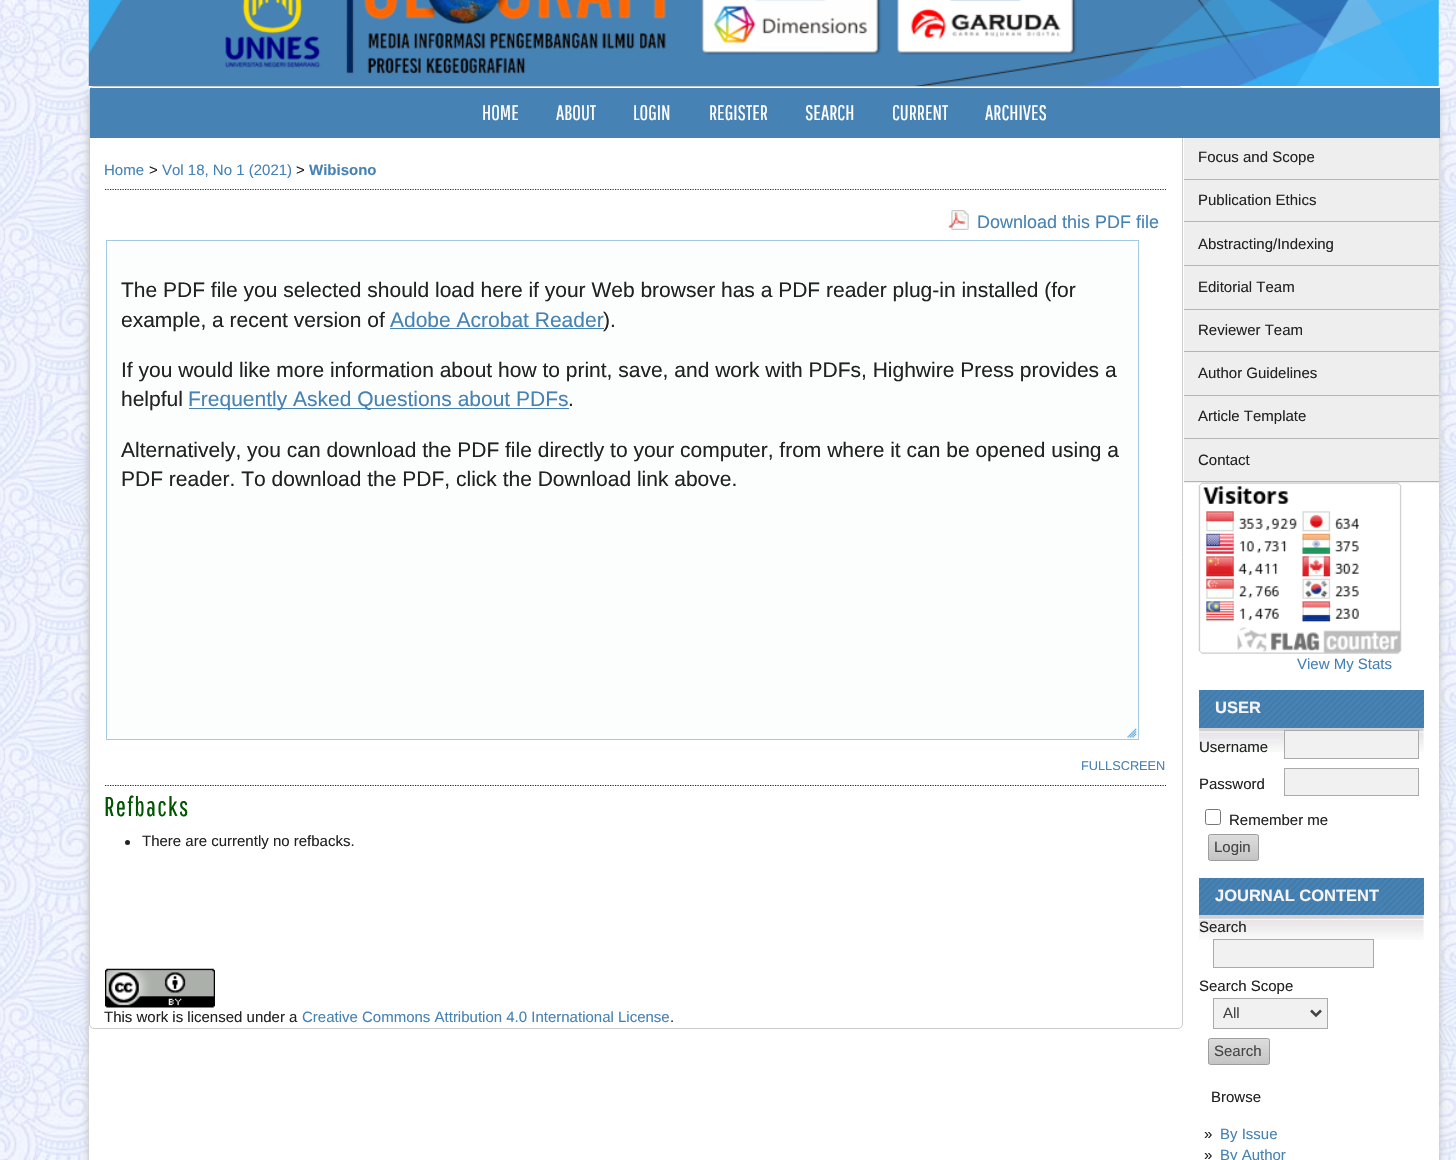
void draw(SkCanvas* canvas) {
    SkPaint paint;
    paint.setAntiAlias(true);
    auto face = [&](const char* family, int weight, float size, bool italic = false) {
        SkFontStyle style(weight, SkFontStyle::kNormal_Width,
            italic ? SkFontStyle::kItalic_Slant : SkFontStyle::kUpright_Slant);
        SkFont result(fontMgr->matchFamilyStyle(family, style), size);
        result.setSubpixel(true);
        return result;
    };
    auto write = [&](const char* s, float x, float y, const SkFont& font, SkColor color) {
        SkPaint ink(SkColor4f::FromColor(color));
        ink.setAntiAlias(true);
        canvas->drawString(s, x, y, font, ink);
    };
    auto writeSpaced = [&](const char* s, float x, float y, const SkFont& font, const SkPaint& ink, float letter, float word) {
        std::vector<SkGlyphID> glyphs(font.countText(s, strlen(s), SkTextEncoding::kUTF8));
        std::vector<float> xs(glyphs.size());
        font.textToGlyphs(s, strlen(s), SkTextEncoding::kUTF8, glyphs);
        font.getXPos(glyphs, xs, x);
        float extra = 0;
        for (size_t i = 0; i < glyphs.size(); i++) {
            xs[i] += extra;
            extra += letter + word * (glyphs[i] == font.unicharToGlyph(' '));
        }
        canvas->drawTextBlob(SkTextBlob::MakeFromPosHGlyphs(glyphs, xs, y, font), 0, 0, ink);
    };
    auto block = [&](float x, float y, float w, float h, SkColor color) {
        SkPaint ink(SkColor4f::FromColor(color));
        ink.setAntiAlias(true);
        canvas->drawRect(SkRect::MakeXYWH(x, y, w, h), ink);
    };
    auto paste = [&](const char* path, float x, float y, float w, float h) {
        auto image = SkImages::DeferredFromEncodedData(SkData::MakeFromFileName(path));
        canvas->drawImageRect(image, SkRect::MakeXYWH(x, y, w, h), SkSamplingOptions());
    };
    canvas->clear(SK_ColorWHITE);
    paste("pic1.png", 0, 0, 1456, 1160);
    paste("pic2.png", 88, 0, 1, 1160);
    paste("pic3.png", 88, 0, 1351, 87);
    paint.setColor(SkColorSetRGB(187, 187, 187));
    paint.setMaskFilter(SkMaskFilter::MakeBlur(kNormal_SkBlurStyle, 4));
    canvas->drawRect(SkRect::MakeXYWH(89, 93, 1350, 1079), paint);
    paint.setMaskFilter(nullptr);
    block(89, 86, 1350, 1074, SK_ColorWHITE);
    paint.setStyle(SkPaint::kStroke_Style);
    paint.setStrokeWidth(1);
    paint.setColor(SkColorSetRGB(204, 204, 204));
    canvas->drawRoundRect(SkRect::MakeXYWH(89.5f, 86.5f, 1093, 942), 4.5f, 4.5f, paint);
    block(90, 88, 1350, 50, SkColorSetRGB(70, 130, 180));
    auto kFont1 = face("Pathway Gothic One", 400, 21);
    write("HOME", 482, 120, kFont1, SK_ColorWHITE);
    write("ABOUT", 556, 120, kFont1, SK_ColorWHITE);
    write("LOGIN", 633, 120, kFont1, SK_ColorWHITE);
    write("REGISTER", 709, 120, kFont1, SK_ColorWHITE);
    write("SEARCH", 805, 120, kFont1, SK_ColorWHITE);
    write("CURRENT", 892, 120, kFont1, SK_ColorWHITE);
    write("ARCHIVES", 985, 120, kFont1, SK_ColorWHITE);
    paint.setStrokeWidth(1.2f);
    paint.setColor(SkColorSetRGB(51, 51, 51));
    paint.setPathEffect(SkDashPathEffect::Make({{1.25f, 1.25f}}, 0));
    canvas->drawPath(SkPathBuilder().moveTo(105, 189.5f).lineTo(1166, 189.5f).detach(), paint);
    paint.setPathEffect(nullptr);
    auto kFont2 = face("Liberation Sans", 400, 15);
    write("Home", 104, 175, kFont2, SkColorSetRGB(70, 130, 180));
    write(">", 149, 175, kFont2, SkColorSetRGB(34, 34, 34));
    write("Vol 18, No 1 (2021)", 162, 175, kFont2, SkColorSetRGB(70, 130, 180));
    write(">", 296, 175, kFont2, SkColorSetRGB(34, 34, 34));
    auto kFont3 = face("Liberation Sans", 700, 15);
    write("Wibisono", 309, 175, kFont3, SkColorSetRGB(70, 130, 180));
    paste("pic4.png", 948, 210, 21, 20);
    auto kFont4 = face("Liberation Sans", 400, 18);
    write("Download this PDF file", 977, 228, kFont4, SkColorSetRGB(70, 130, 180));
    paint.setStyle(SkPaint::kFill_Style);
    paint.setColor(SkColorSetRGB(252, 253, 253));
    canvas->drawRect(SkRect::MakeXYWH(106.5f, 240.5f, 1032, 499), paint);
    paint.setStyle(SkPaint::kStroke_Style);
    paint.setStrokeWidth(1);
    paint.setColor(SkColorSetRGB(166, 201, 226));
    canvas->drawRect(SkRect::MakeXYWH(106.5f, 240.5f, 1032, 499), paint);
    auto kFont5 = face("Liberation Sans", 400, 21);
    write("The PDF file you selected should load here if your Web browser has a PDF reader plug-in installed (for", 121, 297, kFont5, SkColorSetRGB(34, 34, 34));
    write("example, a recent version of", 121, 327, kFont5, SkColorSetRGB(34, 34, 34));
    write("Adobe Acrobat Reader", 390, 327, kFont5, SkColorSetRGB(70, 130, 180));
    block(390, 328, 214, 1, SkColorSetRGB(70, 130, 180));
    write(").", 603, 327, kFont5, SkColorSetRGB(34, 34, 34));
    write("If you would like more information about how to print, save, and work with PDFs, Highwire Press provides a", 121, 377, kFont5, SkColorSetRGB(34, 34, 34));
    write("helpful", 121, 406, kFont5, SkColorSetRGB(34, 34, 34));
    block(189, 408, 380, 1, SkColorSetRGB(70, 130, 180));
    write("Frequently Asked Questions about PDFs", 188, 406, kFont5, SkColorSetRGB(70, 130, 180));
    write(".", 568, 406, kFont5, SkColorSetRGB(34, 34, 34));
    write("Alternatively, you can download the PDF file directly to your computer, from where it can be opened using a", 121, 457, kFont5, SkColorSetRGB(34, 34, 34));
    write("PDF reader. To download the PDF, click the Download link above.", 121, 486, kFont5, SkColorSetRGB(34, 34, 34));
    paste("pic5.png", 1127, 728, 10, 10);
    auto kFont6 = face("Liberation Sans", 400, 12.75f);
    write("FULLSCREEN", 1081, 770, kFont6, SkColorSetRGB(70, 130, 180));
    paint.setStrokeWidth(1.2f);
    paint.setColor(SkColorSetRGB(34, 34, 34));
    paint.setPathEffect(SkDashPathEffect::Make({{1.25f, 1.25f}}, 0));
    canvas->drawPath(SkPathBuilder().moveTo(105, 785.5f).lineTo(1166, 785.5f).detach(), paint);
    paint.setPathEffect(nullptr);
    auto kFont7 = face("Pathway Gothic One", 400, 27);
    paint.setStyle(SkPaint::kFill_Style);
    paint.setColor(SkColorSetRGB(0, 86, 0));
    writeSpaced("Refbacks", 104, 816, kFont7, paint, 1.25f, 0);
    paint.setColor(SkColorSetRGB(34, 34, 34));
    canvas->drawCircle(127.5f, 842.5f, 2.5f, paint);
    write("There are currently no refbacks.", 142, 846, kFont2, SkColorSetRGB(34, 34, 34));
    paste("pic6.png", 105, 968, 110, 40);
    write("This work is licensed under a", 104, 1022, kFont2, SkColorSetRGB(34, 34, 34));
    write("Creative Commons Attribution 4.0 International License", 302, 1022, kFont2, SkColorSetRGB(70, 130, 180));
    write(".", 670, 1022, kFont2, SkColorSetRGB(34, 34, 34));
    block(1184, 138, 255, 41, SkColorSetRGB(238, 238, 238));
    block(1184, 179, 255, 1, SkColorSetRGB(181, 181, 181));
    write("Focus and Scope", 1198, 162, kFont2, SkColorSetRGB(34, 34, 34));
    block(1184, 180, 255, 85, SkColorSetRGB(238, 238, 238));
    block(1184, 221, 255, 1, SkColorSetRGB(181, 181, 181));
    write("Publication Ethics", 1198, 205, kFont2, SkColorSetRGB(34, 34, 34));
    block(1184, 265, 255, 1, SkColorSetRGB(181, 181, 181));
    write("Abstracting/Indexing", 1198, 249, kFont2, SkColorSetRGB(34, 34, 34));
    block(1184, 266, 255, 43, SkColorSetRGB(238, 238, 238));
    block(1184, 309, 255, 1, SkColorSetRGB(181, 181, 181));
    write("Editorial Team", 1198, 292, kFont2, SkColorSetRGB(34, 34, 34));
    block(1184, 310, 255, 85, SkColorSetRGB(238, 238, 238));
    block(1184, 351, 255, 1, SkColorSetRGB(181, 181, 181));
    write("Reviewer Team", 1198, 335, kFont2, SkColorSetRGB(34, 34, 34));
    block(1184, 395, 255, 1, SkColorSetRGB(181, 181, 181));
    write("Author Guidelines", 1198, 378, kFont2, SkColorSetRGB(34, 34, 34));
    block(1184, 396, 255, 42, SkColorSetRGB(238, 238, 238));
    block(1184, 438, 255, 1, SkColorSetRGB(181, 181, 181));
    write("Article Template", 1198, 421, kFont2, SkColorSetRGB(34, 34, 34));
    block(1184, 439, 255, 44, SkColorSetRGB(238, 238, 238));
    block(1184, 481, 255, 1, SkColorSetRGB(181, 181, 181));
    write("Contact", 1198, 465, kFont2, SkColorSetRGB(34, 34, 34));
    paste("pic7.png", 1198, 482, 204, 172);
    write("View My Stats", 1297, 669, kFont2, SkColorSetRGB(70, 130, 180));
    paste("pic8.png", 1199, 728, 225, 24);
    block(1199, 690, 225, 38, SkColorSetRGB(70, 130, 180));
    paste("pic9.png", 1199, 690, 225, 38);
    auto kFont8 = face("Liberation Sans", 700, 16.5f);
    write("USER", 1215, 713, kFont8, SkColorSetRGB(247, 245, 244));
    write("Username", 1199, 752, kFont2, SkColorSetRGB(34, 34, 34));
    paint.setColor(SkColorSetRGB(241, 241, 241));
    canvas->drawRect(SkRect::MakeXYWH(1284.5f, 730.5f, 134, 28), paint);
    paint.setStyle(SkPaint::kStroke_Style);
    paint.setStrokeWidth(1);
    paint.setColor(SkColorSetRGB(170, 170, 170));
    canvas->drawRect(SkRect::MakeXYWH(1284.5f, 730.5f, 134, 28), paint);
    write("Password", 1199, 789, kFont2, SkColorSetRGB(34, 34, 34));
    paint.setStyle(SkPaint::kFill_Style);
    paint.setColor(SkColorSetRGB(241, 241, 241));
    canvas->drawRect(SkRect::MakeXYWH(1284.5f, 768.5f, 134, 27), paint);
    paint.setStyle(SkPaint::kStroke_Style);
    paint.setColor(SkColorSetRGB(170, 170, 170));
    canvas->drawRect(SkRect::MakeXYWH(1284.5f, 768.5f, 134, 27), paint);
    paint.setColor(SkColorSetRGB(118, 118, 118));
    canvas->drawRoundRect(SkRect::MakeXYWH(1205.5f, 809.5f, 15, 15), 2, 2, paint);
    write("Remember me", 1229, 825, kFont2, SkColorSetRGB(34, 34, 34));
    canvas->save();
    canvas->clipPath(SkPathBuilder().moveTo(1210.5f, 834).lineTo(1256.5f, 834).cubicTo(1258, 834, 1259, 835, 1259, 836.5f).lineTo(1259, 858.5f).cubicTo(1259, 860, 1258, 861, 1256.5f, 861).lineTo(1210.5f, 861).cubicTo(1209, 861, 1208, 860, 1208, 858.5f).lineTo(1208, 836.5f).cubicTo(1208, 835, 1209, 834, 1210.5f, 834).close().detach(), true);
    paint.setStyle(SkPaint::kFill_Style);
    {
        const SkColor colors[] = {SkColorSetRGB(221, 221, 221), SkColorSetRGB(196, 196, 196)};
        const float stops[] = {0, 1};
        const SkPoint ends[] = {{1233, 835}, {1233, 860}};
        paint.setShader(SkGradientShader::MakeLinear(ends, colors, stops, 2, SkTileMode::kClamp));
        paint.setAlpha(255);
    }
    canvas->drawRect(SkRect::MakeXYWH(1208, 835, 51, 25), paint);
    canvas->restore();
    paint.setStyle(SkPaint::kStroke_Style);
    paint.setShader(nullptr);
    paint.setColor(SkColorSetRGB(157, 157, 157));
    canvas->drawRoundRect(SkRect::MakeXYWH(1208.5f, 834.5f, 50, 26), 2, 2, paint);
    write("Login", 1214, 852, kFont2, SkColorSetRGB(68, 68, 68));
    paste("pic10.png", 1199, 915, 225, 25);
    block(1199, 878, 225, 37, SkColorSetRGB(70, 130, 180));
    paste("pic11.png", 1199, 877, 225, 38);
    write("JOURNAL CONTENT", 1215, 901, kFont8, SkColorSetRGB(247, 245, 244));
    write("Search", 1199, 932, kFont2, SkColorSetRGB(34, 34, 34));
    paint.setStyle(SkPaint::kFill_Style);
    paint.setColor(SkColorSetRGB(241, 241, 241));
    canvas->drawRect(SkRect::MakeXYWH(1213.5f, 939.5f, 160, 28), paint);
    paint.setStyle(SkPaint::kStroke_Style);
    paint.setColor(SkColorSetRGB(170, 170, 170));
    canvas->drawRect(SkRect::MakeXYWH(1213.5f, 939.5f, 160, 28), paint);
    write("Search Scope", 1199, 991, kFont2, SkColorSetRGB(34, 34, 34));
    paint.setStyle(SkPaint::kFill_Style);
    paint.setColor(SkColorSetRGB(241, 241, 241));
    canvas->drawRect(SkRect::MakeXYWH(1213.5f, 998.5f, 114, 30), paint);
    paint.setStyle(SkPaint::kStroke_Style);
    paint.setColor(SkColorSetRGB(170, 170, 170));
    canvas->drawRect(SkRect::MakeXYWH(1213.5f, 998.5f, 114, 30), paint);
    paint.setStrokeWidth(2.5f);
    paint.setColor(SkColorSetRGB(68, 68, 68));
    canvas->drawPath(SkPathBuilder().moveTo(1311, 1010.5f).lineTo(1316, 1015.5f).lineTo(1321, 1010.5f).detach(), paint);
    write("All", 1223, 1018, kFont2, SkColorSetRGB(68, 68, 68));
    canvas->save();
    canvas->clipPath(SkPathBuilder().moveTo(1210.5f, 1038).lineTo(1267.5f, 1038).cubicTo(1269, 1038, 1270, 1039, 1270, 1040.5f).lineTo(1270, 1062.5f).cubicTo(1270, 1064, 1269, 1065, 1267.5f, 1065).lineTo(1210.5f, 1065).cubicTo(1209, 1065, 1208, 1064, 1208, 1062.5f).lineTo(1208, 1040.5f).cubicTo(1208, 1039, 1209, 1038, 1210.5f, 1038).close().detach(), true);
    paint.setStyle(SkPaint::kFill_Style);
    {
        const SkColor colors[] = {SkColorSetRGB(221, 221, 221), SkColorSetRGB(196, 196, 196)};
        const float stops[] = {0, 1};
        const SkPoint ends[] = {{1239, 1039}, {1239, 1064}};
        paint.setShader(SkGradientShader::MakeLinear(ends, colors, stops, 2, SkTileMode::kClamp));
        paint.setAlpha(255);
    }
    canvas->drawRect(SkRect::MakeXYWH(1208, 1039, 62, 25), paint);
    canvas->restore();
    paint.setStyle(SkPaint::kStroke_Style);
    paint.setStrokeWidth(1);
    paint.setShader(nullptr);
    paint.setColor(SkColorSetRGB(157, 157, 157));
    canvas->drawRoundRect(SkRect::MakeXYWH(1208.5f, 1038.5f, 61, 26), 2, 2, paint);
    write("Search", 1214, 1056, kFont2, SkColorSetRGB(68, 68, 68));
    write("Browse", 1211, 1102, kFont2, SkColorSetRGB(34, 34, 34));
    write("»", 1204, 1139, kFont2, SkColorSetRGB(34, 34, 34));
    write("By Issue", 1220, 1139, kFont2, SkColorSetRGB(70, 130, 180));
    write("»", 1204, 1160, kFont2, SkColorSetRGB(34, 34, 34));
    write("By Author", 1220, 1160, kFont2, SkColorSetRGB(70, 130, 180));
}
